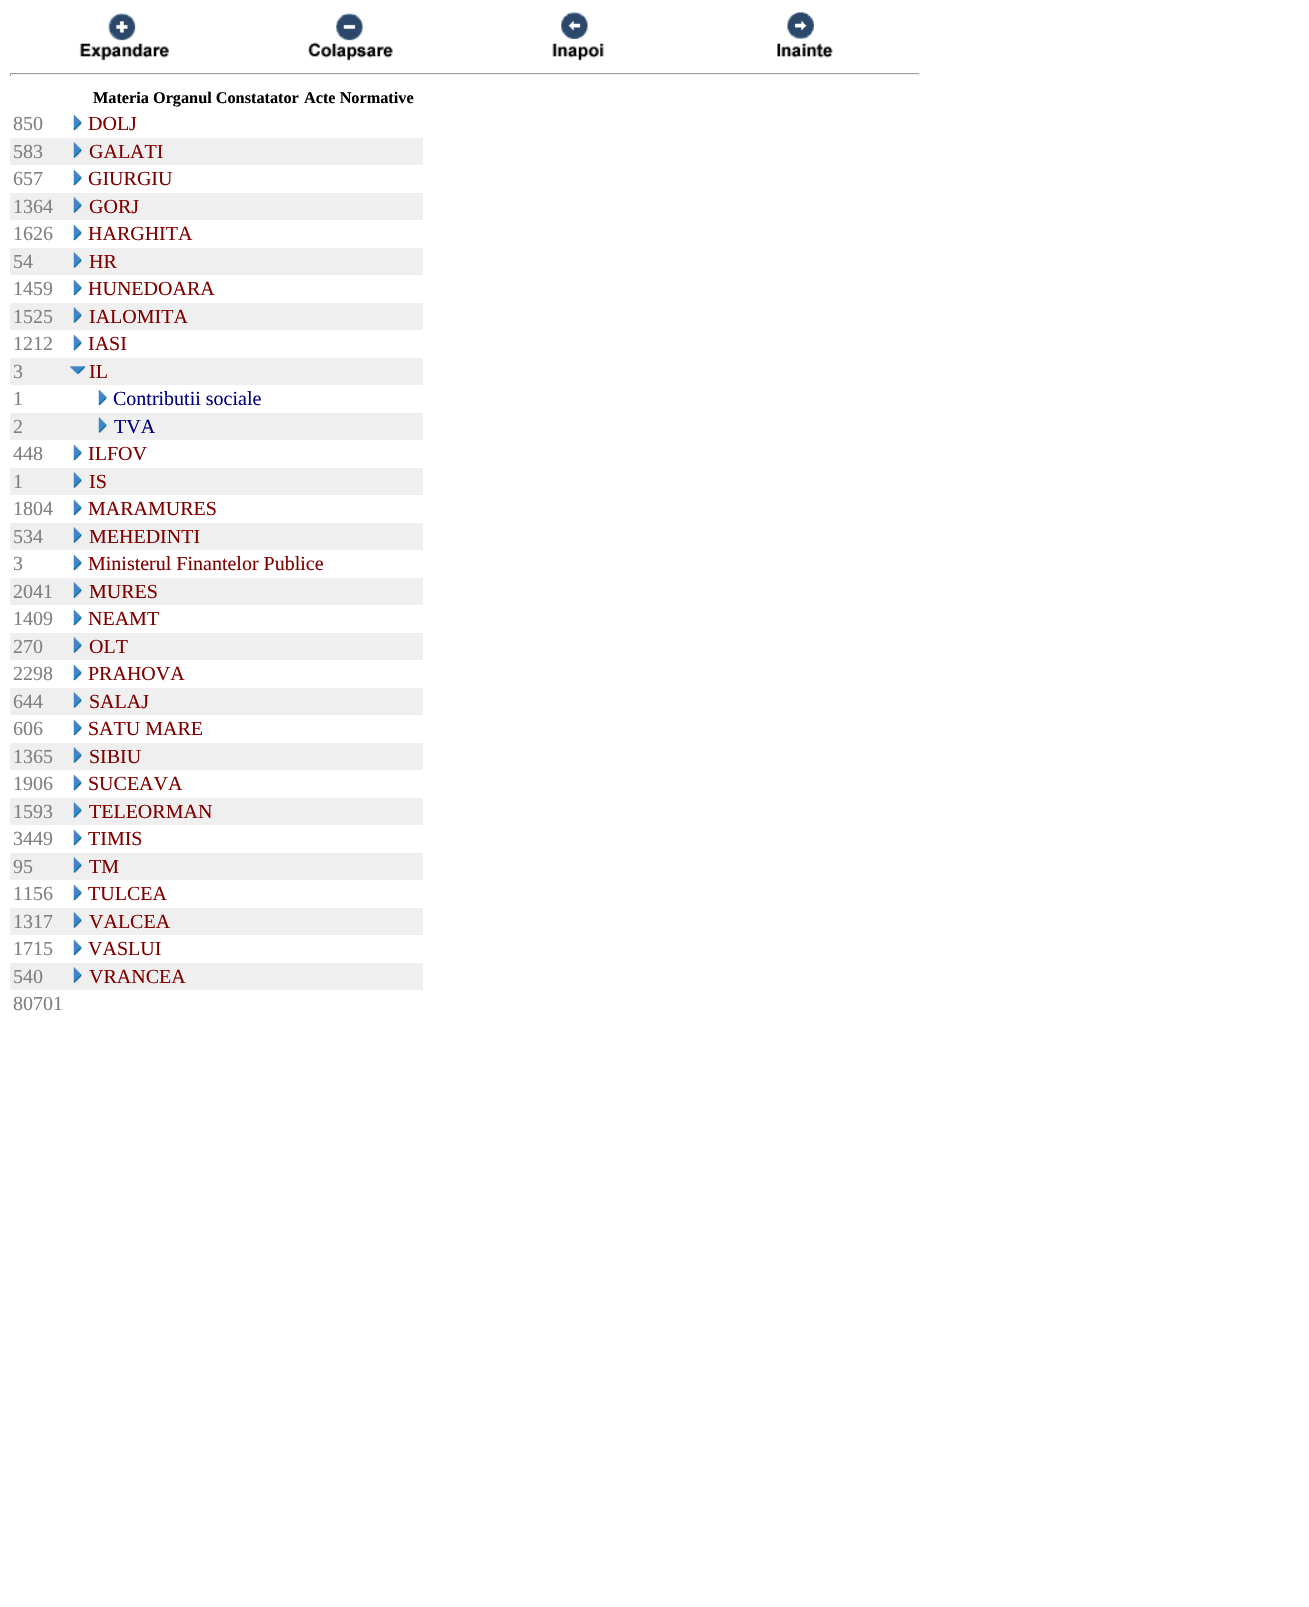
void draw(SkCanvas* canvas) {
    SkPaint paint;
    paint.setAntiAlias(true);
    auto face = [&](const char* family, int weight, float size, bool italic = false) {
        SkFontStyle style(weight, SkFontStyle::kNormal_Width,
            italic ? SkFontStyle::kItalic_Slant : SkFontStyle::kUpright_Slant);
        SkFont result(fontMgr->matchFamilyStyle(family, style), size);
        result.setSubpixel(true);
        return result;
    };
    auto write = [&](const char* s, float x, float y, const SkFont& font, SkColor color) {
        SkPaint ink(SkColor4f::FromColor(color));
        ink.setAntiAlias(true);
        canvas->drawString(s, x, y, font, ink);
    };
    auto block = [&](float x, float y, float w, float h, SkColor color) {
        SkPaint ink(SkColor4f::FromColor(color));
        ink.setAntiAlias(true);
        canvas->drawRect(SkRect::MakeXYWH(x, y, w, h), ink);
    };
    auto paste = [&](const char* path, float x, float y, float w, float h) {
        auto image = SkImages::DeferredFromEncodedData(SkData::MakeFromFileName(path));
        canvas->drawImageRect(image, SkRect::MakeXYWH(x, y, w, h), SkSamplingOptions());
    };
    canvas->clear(SK_ColorWHITE);
    paste("pic1.png", 79, 13, 90, 48);
    paste("pic2.png", 308, 13, 85, 48);
    paste("pic3.png", 552, 12, 52, 49);
    paste("pic4.png", 777, 12, 56, 46);
    block(10, 73, 910, 1, SkColorSetRGB(159, 159, 159));
    block(919, 73, 1, 3, SkColorSetRGB(238, 238, 238));
    block(10, 74, 910, 1, SkColorSetRGB(238, 238, 238));
    block(10, 73, 1, 3, SkColorSetRGB(159, 159, 159));
    auto kFont1 = face("Liberation Serif", 700, 16.25f);
    write("Materia", 93, 103, kFont1, SK_ColorBLACK);
    write("Organul Constatator", 153, 103, kFont1, SK_ColorBLACK);
    write("Acte Normative", 304, 103, kFont1, SK_ColorBLACK);
    auto kFont2 = face("Liberation Serif", 400, 20);
    write("850", 13, 130, kFont2, SkColorSetRGB(128, 128, 128));
    paste("pic5.png", 73, 114, 9, 17);
    write("DOLJ", 88, 130, kFont2, SkColorSetRGB(128, 0, 0));
    block(10, 138, 413, 27, SkColorSetRGB(239, 239, 239));
    write("583", 13, 158, kFont2, SkColorSetRGB(128, 128, 128));
    paste("pic6.png", 73, 142, 9, 16);
    write("GALATI", 89, 158, kFont2, SkColorSetRGB(128, 0, 0));
    write("657", 13, 185, kFont2, SkColorSetRGB(128, 128, 128));
    paste("pic5.png", 73, 169, 9, 17);
    write("GIURGIU", 88, 185, kFont2, SkColorSetRGB(128, 0, 0));
    block(10, 193, 413, 27, SkColorSetRGB(239, 239, 239));
    write("1364", 13, 213, kFont2, SkColorSetRGB(128, 128, 128));
    paste("pic6.png", 73, 197, 9, 16);
    write("GORJ", 89, 213, kFont2, SkColorSetRGB(128, 0, 0));
    write("1626", 13, 240, kFont2, SkColorSetRGB(128, 128, 128));
    paste("pic5.png", 73, 224, 9, 17);
    write("HARGHITA", 88, 240, kFont2, SkColorSetRGB(128, 0, 0));
    block(10, 248, 413, 27, SkColorSetRGB(239, 239, 239));
    write("54", 13, 268, kFont2, SkColorSetRGB(128, 128, 128));
    paste("pic6.png", 73, 252, 9, 16);
    write("HR", 89, 268, kFont2, SkColorSetRGB(128, 0, 0));
    write("1459", 13, 295, kFont2, SkColorSetRGB(128, 128, 128));
    paste("pic5.png", 73, 279, 9, 17);
    write("HUNEDOARA", 88, 295, kFont2, SkColorSetRGB(128, 0, 0));
    block(10, 303, 413, 27, SkColorSetRGB(239, 239, 239));
    write("1525", 13, 323, kFont2, SkColorSetRGB(128, 128, 128));
    paste("pic6.png", 73, 307, 9, 16);
    write("IALOMITA", 89, 323, kFont2, SkColorSetRGB(128, 0, 0));
    write("1212", 13, 350, kFont2, SkColorSetRGB(128, 128, 128));
    paste("pic5.png", 73, 334, 9, 17);
    write("IASI", 88, 350, kFont2, SkColorSetRGB(128, 0, 0));
    block(10, 358, 413, 27, SkColorSetRGB(239, 239, 239));
    write("3", 13, 378, kFont2, SkColorSetRGB(128, 128, 128));
    paste("pic7.png", 69, 366, 17, 8);
    write("IL", 89, 378, kFont2, SkColorSetRGB(128, 0, 0));
    write("1", 13, 405, kFont2, SkColorSetRGB(128, 128, 128));
    paste("pic8.png", 98, 389, 9, 17);
    write("Contributii sociale", 113, 405, kFont2, SkColorSetRGB(0, 0, 128));
    block(10, 413, 413, 27, SkColorSetRGB(239, 239, 239));
    write("2", 13, 433, kFont2, SkColorSetRGB(128, 128, 128));
    paste("pic9.png", 98, 417, 9, 16);
    write("TVA", 114, 433, kFont2, SkColorSetRGB(0, 0, 128));
    write("448", 13, 460, kFont2, SkColorSetRGB(128, 128, 128));
    paste("pic5.png", 73, 444, 9, 17);
    write("ILFOV", 88, 460, kFont2, SkColorSetRGB(128, 0, 0));
    block(10, 468, 413, 27, SkColorSetRGB(239, 239, 239));
    write("1", 13, 488, kFont2, SkColorSetRGB(128, 128, 128));
    paste("pic6.png", 73, 472, 9, 16);
    write("IS", 89, 488, kFont2, SkColorSetRGB(128, 0, 0));
    write("1804", 13, 515, kFont2, SkColorSetRGB(128, 128, 128));
    paste("pic5.png", 73, 499, 9, 17);
    write("MARAMURES", 88, 515, kFont2, SkColorSetRGB(128, 0, 0));
    block(10, 523, 413, 27, SkColorSetRGB(239, 239, 239));
    write("534", 13, 543, kFont2, SkColorSetRGB(128, 128, 128));
    paste("pic6.png", 73, 527, 9, 16);
    write("MEHEDINTI", 89, 543, kFont2, SkColorSetRGB(128, 0, 0));
    write("3", 13, 570, kFont2, SkColorSetRGB(128, 128, 128));
    paste("pic5.png", 73, 554, 9, 17);
    write("Ministerul Finantelor Publice", 88, 570, kFont2, SkColorSetRGB(128, 0, 0));
    block(10, 578, 413, 27, SkColorSetRGB(239, 239, 239));
    write("2041", 13, 598, kFont2, SkColorSetRGB(128, 128, 128));
    paste("pic10.png", 73, 582, 9, 16);
    write("MURES", 89, 598, kFont2, SkColorSetRGB(128, 0, 0));
    write("1409", 13, 625, kFont2, SkColorSetRGB(128, 128, 128));
    paste("pic5.png", 73, 609, 9, 17);
    write("NEAMT", 88, 625, kFont2, SkColorSetRGB(128, 0, 0));
    block(10, 633, 413, 27, SkColorSetRGB(239, 239, 239));
    write("270", 13, 653, kFont2, SkColorSetRGB(128, 128, 128));
    paste("pic6.png", 73, 637, 9, 16);
    write("OLT", 89, 653, kFont2, SkColorSetRGB(128, 0, 0));
    write("2298", 13, 680, kFont2, SkColorSetRGB(128, 128, 128));
    paste("pic5.png", 73, 664, 9, 17);
    write("PRAHOVA", 88, 680, kFont2, SkColorSetRGB(128, 0, 0));
    block(10, 688, 413, 27, SkColorSetRGB(239, 239, 239));
    write("644", 13, 708, kFont2, SkColorSetRGB(128, 128, 128));
    paste("pic6.png", 73, 692, 9, 16);
    write("SALAJ", 89, 708, kFont2, SkColorSetRGB(128, 0, 0));
    write("606", 13, 735, kFont2, SkColorSetRGB(128, 128, 128));
    paste("pic5.png", 73, 719, 9, 17);
    write("SATU MARE", 88, 735, kFont2, SkColorSetRGB(128, 0, 0));
    block(10, 743, 413, 27, SkColorSetRGB(239, 239, 239));
    write("1365", 13, 763, kFont2, SkColorSetRGB(128, 128, 128));
    paste("pic6.png", 73, 747, 9, 16);
    write("SIBIU", 89, 763, kFont2, SkColorSetRGB(128, 0, 0));
    write("1906", 13, 790, kFont2, SkColorSetRGB(128, 128, 128));
    paste("pic11.png", 73, 774, 9, 17);
    write("SUCEAVA", 88, 790, kFont2, SkColorSetRGB(128, 0, 0));
    block(10, 798, 413, 27, SkColorSetRGB(239, 239, 239));
    write("1593", 13, 818, kFont2, SkColorSetRGB(128, 128, 128));
    paste("pic6.png", 73, 802, 9, 16);
    write("TELEORMAN", 89, 818, kFont2, SkColorSetRGB(128, 0, 0));
    write("3449", 13, 845, kFont2, SkColorSetRGB(128, 128, 128));
    paste("pic5.png", 73, 829, 9, 17);
    write("TIMIS", 88, 845, kFont2, SkColorSetRGB(128, 0, 0));
    block(10, 853, 413, 27, SkColorSetRGB(239, 239, 239));
    write("95", 13, 873, kFont2, SkColorSetRGB(128, 128, 128));
    paste("pic6.png", 73, 857, 9, 16);
    write("TM", 89, 873, kFont2, SkColorSetRGB(128, 0, 0));
    write("1156", 13, 900, kFont2, SkColorSetRGB(128, 128, 128));
    paste("pic5.png", 73, 884, 9, 17);
    write("TULCEA", 88, 900, kFont2, SkColorSetRGB(128, 0, 0));
    block(10, 908, 413, 27, SkColorSetRGB(239, 239, 239));
    write("1317", 13, 928, kFont2, SkColorSetRGB(128, 128, 128));
    paste("pic6.png", 73, 912, 9, 16);
    write("VALCEA", 89, 928, kFont2, SkColorSetRGB(128, 0, 0));
    write("1715", 13, 955, kFont2, SkColorSetRGB(128, 128, 128));
    paste("pic5.png", 73, 939, 9, 17);
    write("VASLUI", 88, 955, kFont2, SkColorSetRGB(128, 0, 0));
    block(10, 963, 413, 27, SkColorSetRGB(239, 239, 239));
    write("540", 13, 983, kFont2, SkColorSetRGB(128, 128, 128));
    paste("pic6.png", 73, 967, 9, 16);
    write("VRANCEA", 89, 983, kFont2, SkColorSetRGB(128, 0, 0));
    write("80701", 13, 1010, kFont2, SkColorSetRGB(128, 128, 128));
}
